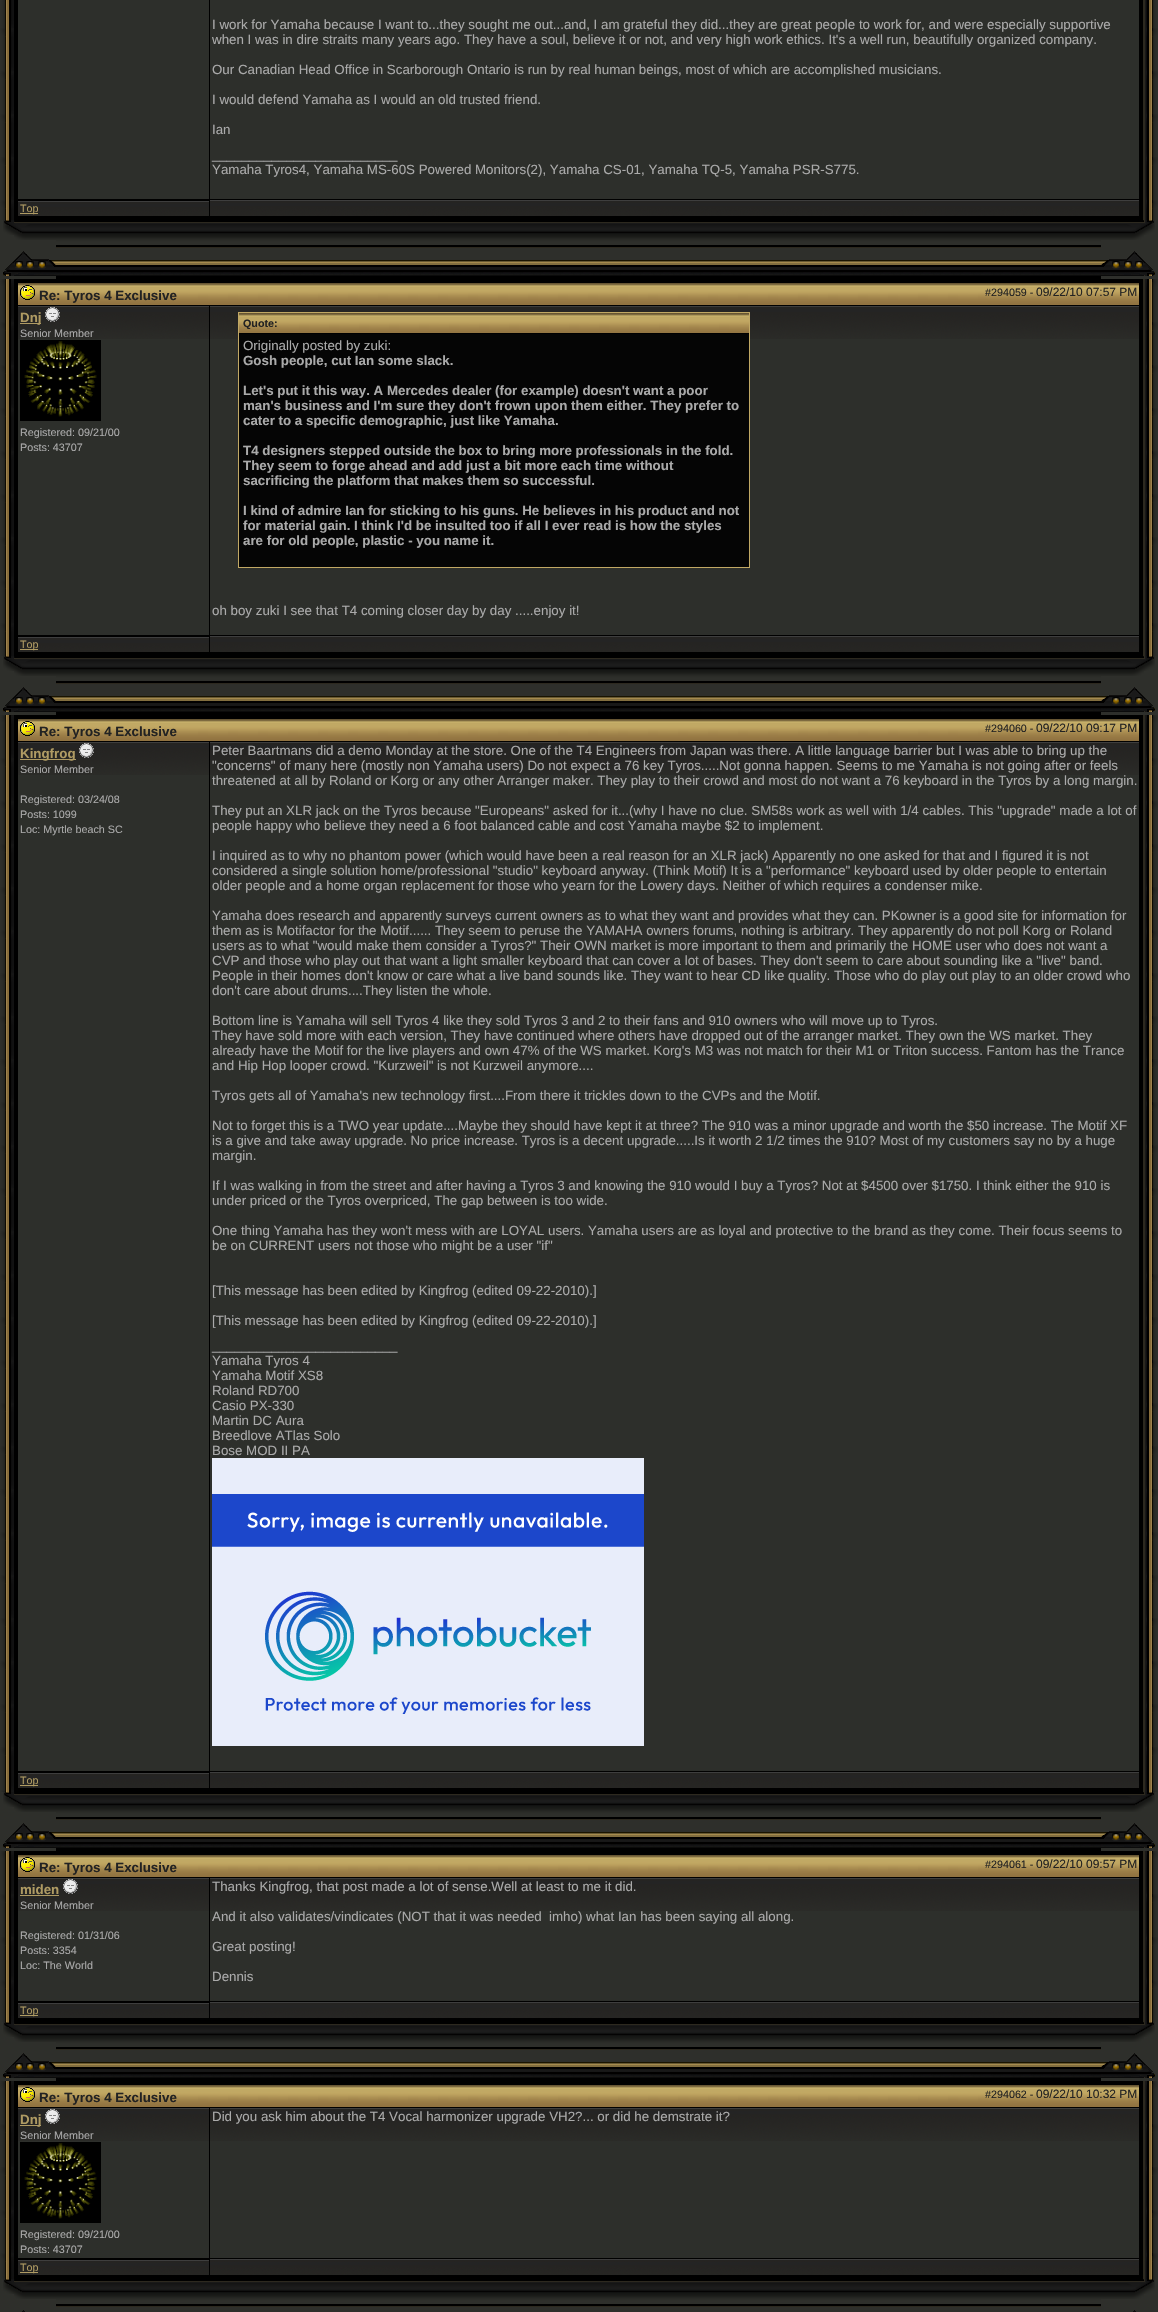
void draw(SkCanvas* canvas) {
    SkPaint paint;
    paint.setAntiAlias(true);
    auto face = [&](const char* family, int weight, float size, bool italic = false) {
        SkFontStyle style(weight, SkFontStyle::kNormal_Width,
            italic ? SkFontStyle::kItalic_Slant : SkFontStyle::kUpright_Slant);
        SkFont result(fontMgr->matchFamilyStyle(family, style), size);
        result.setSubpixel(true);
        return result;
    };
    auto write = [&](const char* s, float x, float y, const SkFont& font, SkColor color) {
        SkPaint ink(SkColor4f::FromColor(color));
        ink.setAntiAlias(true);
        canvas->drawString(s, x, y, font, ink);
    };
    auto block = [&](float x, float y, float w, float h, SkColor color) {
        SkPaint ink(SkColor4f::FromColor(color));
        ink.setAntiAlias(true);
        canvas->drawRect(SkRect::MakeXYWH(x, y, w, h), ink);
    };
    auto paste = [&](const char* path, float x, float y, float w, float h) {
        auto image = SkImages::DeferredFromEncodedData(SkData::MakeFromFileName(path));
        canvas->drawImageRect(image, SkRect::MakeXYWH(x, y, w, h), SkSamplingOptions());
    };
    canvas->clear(SkColorSetRGB(46, 47, 43));
    paste("pic1.png", 0, 0, 14, 220);
    block(14, 0, 1129, 220, SK_ColorBLACK);
    block(1143, 0, 1, 220, SkColorSetRGB(44, 41, 31));
    block(18, 0, 191, 199, SkColorSetRGB(45, 47, 43));
    block(210, 0, 929, 199, SkColorSetRGB(45, 47, 43));
    auto kFont1 = face("Liberation Sans", 400, 13.33f);
    write("I work for Yamaha because I want to...they sought me out...and, I am grateful they did...they are great people to work for, and were especially supportive", 212, 29, kFont1, SkColorSetRGB(170, 170, 170));
    write("when I was in dire straits many years ago. They have a soul, believe it or not, and very high work ethics. It's a well run, beautifully organized company.", 212, 44, kFont1, SkColorSetRGB(170, 170, 170));
    write("Our Canadian Head Office in Scarborough Ontario is run by real human beings, most of which are accomplished musicians.", 212, 74, kFont1, SkColorSetRGB(170, 170, 170));
    write("I would defend Yamaha as I would an old trusted friend.", 212, 104, kFont1, SkColorSetRGB(170, 170, 170));
    write("Ian", 212, 134, kFont1, SkColorSetRGB(170, 170, 170));
    write("_________________________", 212, 159, kFont1, SkColorSetRGB(170, 170, 170));
    write("Yamaha Tyros4, Yamaha MS-60S Powered Monitors(2), Yamaha CS-01, Yamaha TQ-5, Yamaha PSR-S775.", 212, 174, kFont1, SkColorSetRGB(170, 170, 170));
    paste("pic2.png", 18, 200, 191, 16);
    block(20, 213, 18, 1, SkColorSetRGB(175, 155, 99));
    auto kFont2 = face("Liberation Sans", 400, 10.75f);
    write("Top", 20, 212, kFont2, SkColorSetRGB(175, 155, 99));
    paste("pic3.png", 210, 199, 929, 17);
    paste("pic4.png", 1144, 0, 14, 220);
    paste("pic5.png", 3, 220, 11, 15);
    paste("pic6.png", 14, 220, 42, 20);
    block(56, 220, 1045, 2, SK_ColorBLACK);
    paste("pic7.png", 56, 222, 1045, 26);
    paste("pic8.png", 1101, 220, 43, 20);
    paste("pic9.png", 1144, 220, 11, 15);
    paste("pic10.png", 3, 261, 11, 15);
    paste("pic11.png", 14, 251, 42, 25);
    block(56, 276, 1045, 3, SK_ColorBLACK);
    paste("pic12.png", 56, 248, 1045, 28);
    paste("pic13.png", 1101, 251, 43, 25);
    paste("pic14.png", 1144, 261, 11, 15);
    paste("pic15.png", 0, 279, 14, 377);
    block(5, 287, 1, 1, SkColorSetRGB(12, 9, 0));
    block(14, 279, 1129, 377, SK_ColorBLACK);
    block(1143, 279, 1, 377, SkColorSetRGB(44, 41, 31));
    paste("pic16.png", 18, 283, 1121, 22);
    paste("pic17.png", 20, 285, 15, 15);
    auto kFont3 = face("Liberation Sans", 700, 13.33f);
    write("Re: Tyros 4 Exclusive", 39, 300, kFont3, SkColorSetRGB(34, 34, 34));
    write("#294059 -", 985, 296, kFont2, SkColorSetRGB(34, 34, 34));
    auto kFont4 = face("Liberation Sans", 400, 12);
    write("09/22/10", 1036, 296, kFont4, SkColorSetRGB(34, 34, 34));
    write("07:57 PM", 1086, 296, kFont4, SkColorSetRGB(34, 34, 34));
    block(18, 339, 191, 296, SkColorSetRGB(45, 47, 43));
    paste("pic18.png", 18, 305, 191, 34);
    block(20, 323, 21, 1, SkColorSetRGB(175, 155, 99));
    write("Dnj", 20, 322, kFont3, SkColorSetRGB(175, 155, 99));
    paste("pic19.png", 45, 307, 15, 15);
    write("Senior Member", 20, 337, kFont2, SkColorSetRGB(170, 170, 170));
    paste("pic20.png", 20, 340, 81, 81);
    write("Registered: 09/21/00", 20, 436, kFont2, SkColorSetRGB(170, 170, 170));
    write("Posts: 43707", 20, 451, kFont2, SkColorSetRGB(170, 170, 170));
    block(210, 339, 929, 296, SkColorSetRGB(45, 47, 43));
    paste("pic21.png", 210, 305, 929, 34);
    block(239, 334, 510, 233, SkColorSetRGB(5, 5, 5));
    paint.setStyle(SkPaint::kStroke_Style);
    paint.setStrokeWidth(1);
    paint.setColor(SkColorSetRGB(193, 168, 100));
    canvas->drawRect(SkRect::MakeXYWH(238.5f, 312.5f, 511, 255), paint);
    paste("pic22.png", 239, 313, 510, 20);
    block(239, 333, 510, 1, SK_ColorBLACK);
    auto kFont5 = face("Liberation Sans", 700, 10.75f);
    write("Quote:", 243, 327, kFont5, SkColorSetRGB(34, 34, 34));
    write("Originally posted by zuki:", 243, 350, kFont1, SkColorSetRGB(170, 170, 170));
    write("Gosh people, cut Ian some slack.", 243, 365, kFont3, SkColorSetRGB(170, 170, 170));
    write("Let's put it this way. A Mercedes dealer (for example) doesn't want a poor", 243, 395, kFont3, SkColorSetRGB(170, 170, 170));
    write("man's business and I'm sure they don't frown upon them either. They prefer to", 243, 410, kFont3, SkColorSetRGB(170, 170, 170));
    write("cater to a specific demographic, just like Yamaha.", 243, 425, kFont3, SkColorSetRGB(170, 170, 170));
    write("T4 designers stepped outside the box to bring more professionals in the fold.", 243, 455, kFont3, SkColorSetRGB(170, 170, 170));
    write("They seem to forge ahead and add just a bit more each time without", 243, 470, kFont3, SkColorSetRGB(170, 170, 170));
    write("sacrificing the platform that makes them so successful.", 243, 485, kFont3, SkColorSetRGB(170, 170, 170));
    write("I kind of admire Ian for sticking to his guns. He believes in his product and not", 243, 515, kFont3, SkColorSetRGB(170, 170, 170));
    write("for material gain. I think I'd be insulted too if all I ever read is how the styles", 243, 530, kFont3, SkColorSetRGB(170, 170, 170));
    write("are for old people, plastic - you name it.", 243, 545, kFont3, SkColorSetRGB(170, 170, 170));
    write("oh boy zuki I see that T4 coming closer day by day .....enjoy it!", 212, 615, kFont1, SkColorSetRGB(170, 170, 170));
    paste("pic2.png", 18, 636, 191, 16);
    block(20, 649, 18, 1, SkColorSetRGB(175, 155, 99));
    write("Top", 20, 648, kFont2, SkColorSetRGB(175, 155, 99));
    paste("pic3.png", 210, 635, 929, 17);
    paste("pic23.png", 1144, 279, 14, 377);
    block(1152, 287, 1, 1, SkColorSetRGB(12, 9, 0));
    paste("pic5.png", 3, 656, 11, 15);
    paste("pic6.png", 14, 656, 42, 20);
    block(56, 656, 1045, 2, SK_ColorBLACK);
    paste("pic7.png", 56, 658, 1045, 26);
    paste("pic8.png", 1101, 656, 43, 20);
    paste("pic9.png", 1144, 656, 11, 15);
    paste("pic10.png", 3, 697, 11, 15);
    paste("pic11.png", 14, 687, 42, 25);
    block(56, 712, 1045, 3, SK_ColorBLACK);
    paste("pic12.png", 56, 684, 1045, 28);
    paste("pic13.png", 1101, 687, 43, 25);
    paste("pic14.png", 1144, 697, 11, 15);
    paste("pic24.png", 0, 715, 14, 1077);
    block(5, 723, 1, 1, SkColorSetRGB(12, 9, 0));
    block(14, 715, 1129, 1077, SK_ColorBLACK);
    block(1143, 715, 1, 1077, SkColorSetRGB(44, 41, 31));
    paste("pic16.png", 18, 719, 1121, 22);
    paste("pic17.png", 20, 721, 15, 15);
    write("Re: Tyros 4 Exclusive", 39, 736, kFont3, SkColorSetRGB(34, 34, 34));
    write("#294060 -", 985, 732, kFont2, SkColorSetRGB(34, 34, 34));
    write("09/22/10", 1036, 732, kFont4, SkColorSetRGB(34, 34, 34));
    write("09:17 PM", 1086, 732, kFont4, SkColorSetRGB(34, 34, 34));
    block(18, 775, 191, 996, SkColorSetRGB(45, 47, 43));
    paste("pic18.png", 18, 741, 191, 34);
    block(20, 759, 56, 1, SkColorSetRGB(175, 155, 99));
    write("Kingfrog", 20, 758, kFont3, SkColorSetRGB(175, 155, 99));
    paste("pic25.png", 79, 743, 15, 15);
    write("Senior Member", 20, 773, kFont2, SkColorSetRGB(170, 170, 170));
    write("Registered: 03/24/08", 20, 803, kFont2, SkColorSetRGB(170, 170, 170));
    write("Posts: 1099", 20, 818, kFont2, SkColorSetRGB(170, 170, 170));
    write("Loc: Myrtle beach SC", 20, 833, kFont2, SkColorSetRGB(170, 170, 170));
    block(210, 775, 929, 996, SkColorSetRGB(45, 47, 43));
    paste("pic21.png", 210, 741, 929, 34);
    write("Peter Baartmans did a demo Monday at the store. One of the T4 Engineers from Japan was there. A little language barrier but I was able to bring up the", 212, 755, kFont1, SkColorSetRGB(170, 170, 170));
    write("\"concerns\" of many here (mostly non Yamaha users) Do not expect a 76 key Tyros.....Not gonna happen. Seems to me Yamaha is not going after or feels", 212, 770, kFont1, SkColorSetRGB(170, 170, 170));
    write("threatened at all by Roland or Korg or any other Arranger maker. They play to their crowd and most do not want a 76 keyboard in the Tyros by a long margin.", 212, 785, kFont1, SkColorSetRGB(170, 170, 170));
    write("They put an XLR jack on the Tyros because \"Europeans\" asked for it...(why I have no clue. SM58s work as well with 1/4 cables. This \"upgrade\" made a lot of", 212, 815, kFont1, SkColorSetRGB(170, 170, 170));
    write("people happy who believe they need a 6 foot balanced cable and cost Yamaha maybe $2 to implement.", 212, 830, kFont1, SkColorSetRGB(170, 170, 170));
    write("I inquired as to why no phantom power (which would have been a real reason for an XLR jack) Apparently no one asked for that and I figured it is not", 212, 860, kFont1, SkColorSetRGB(170, 170, 170));
    write("considered a single solution home/professional \"studio\" keyboard anyway. (Think Motif) It is a \"performance\" keyboard used by older people to entertain", 212, 875, kFont1, SkColorSetRGB(170, 170, 170));
    write("older people and a home organ replacement for those who yearn for the Lowery days. Neither of which requires a condenser mike.", 212, 890, kFont1, SkColorSetRGB(170, 170, 170));
    write("Yamaha does research and apparently surveys current owners as to what they want and provides what they can. PKowner is a good site for information for", 212, 920, kFont1, SkColorSetRGB(170, 170, 170));
    write("them as is Motifactor for the Motif...... They seem to peruse the YAMAHA owners forums, nothing is arbitrary. They apparently do not poll Korg or Roland", 212, 935, kFont1, SkColorSetRGB(170, 170, 170));
    write("users as to what \"would make them consider a Tyros?\" Their OWN market is more important to them and primarily the HOME user who does not want a", 212, 950, kFont1, SkColorSetRGB(170, 170, 170));
    write("CVP and those who play out that want a light smaller keyboard that can cover a lot of bases. They don't seem to care about sounding like a \"live\" band.", 212, 965, kFont1, SkColorSetRGB(170, 170, 170));
    write("People in their homes don't know or care what a live band sounds like. They want to hear CD like quality. Those who do play out play to an older crowd who", 212, 980, kFont1, SkColorSetRGB(170, 170, 170));
    write("don't care about drums....They listen the whole.", 212, 995, kFont1, SkColorSetRGB(170, 170, 170));
    write("Bottom line is Yamaha will sell Tyros 4 like they sold Tyros 3 and 2 to their fans and 910 owners who will move up to Tyros.", 212, 1025, kFont1, SkColorSetRGB(170, 170, 170));
    write("They have sold more with each version, They have continued where others have dropped out of the arranger market. They own the WS market. They", 212, 1040, kFont1, SkColorSetRGB(170, 170, 170));
    write("already have the Motif for the live players and own 47% of the WS market. Korg's M3 was not match for their M1 or Triton success. Fantom has the Trance", 212, 1055, kFont1, SkColorSetRGB(170, 170, 170));
    write("and Hip Hop looper crowd. \"Kurzweil\" is not Kurzweil anymore....", 212, 1070, kFont1, SkColorSetRGB(170, 170, 170));
    write("Tyros gets all of Yamaha's new technology first....From there it trickles down to the CVPs and the Motif.", 212, 1100, kFont1, SkColorSetRGB(170, 170, 170));
    write("Not to forget this is a TWO year update....Maybe they should have kept it at three? The 910 was a minor upgrade and worth the $50 increase. The Motif XF", 212, 1130, kFont1, SkColorSetRGB(170, 170, 170));
    write("is a give and take away upgrade. No price increase. Tyros is a decent upgrade.....Is it worth 2 1/2 times the 910? Most of my customers say no by a huge", 212, 1145, kFont1, SkColorSetRGB(170, 170, 170));
    write("margin.", 212, 1160, kFont1, SkColorSetRGB(170, 170, 170));
    write("If I was walking in from the street and after having a Tyros 3 and knowing the 910 would I buy a Tyros? Not at $4500 over $1750. I think either the 910 is", 212, 1190, kFont1, SkColorSetRGB(170, 170, 170));
    write("under priced or the Tyros overpriced, The gap between is too wide.", 212, 1205, kFont1, SkColorSetRGB(170, 170, 170));
    write("One thing Yamaha has they won't mess with are LOYAL users. Yamaha users are as loyal and protective to the brand as they come. Their focus seems to", 212, 1235, kFont1, SkColorSetRGB(170, 170, 170));
    write("be on CURRENT users not those who might be a user \"if\"", 212, 1250, kFont1, SkColorSetRGB(170, 170, 170));
    write("[This message has been edited by Kingfrog (edited 09-22-2010).]", 212, 1295, kFont1, SkColorSetRGB(170, 170, 170));
    write("[This message has been edited by Kingfrog (edited 09-22-2010).]", 212, 1325, kFont1, SkColorSetRGB(170, 170, 170));
    write("_________________________", 212, 1350, kFont1, SkColorSetRGB(170, 170, 170));
    write("Yamaha Tyros 4", 212, 1365, kFont1, SkColorSetRGB(170, 170, 170));
    write("Yamaha Motif XS8", 212, 1380, kFont1, SkColorSetRGB(170, 170, 170));
    write("Roland RD700", 212, 1395, kFont1, SkColorSetRGB(170, 170, 170));
    write("Casio PX-330", 212, 1410, kFont1, SkColorSetRGB(170, 170, 170));
    write("Martin DC Aura", 212, 1425, kFont1, SkColorSetRGB(170, 170, 170));
    write("Breedlove ATlas Solo", 212, 1440, kFont1, SkColorSetRGB(170, 170, 170));
    write("Bose MOD II PA", 212, 1455, kFont1, SkColorSetRGB(170, 170, 170));
    paste("pic26.png", 212, 1458, 432, 288);
    paste("pic2.png", 18, 1772, 191, 16);
    block(20, 1785, 18, 1, SkColorSetRGB(175, 155, 99));
    write("Top", 20, 1784, kFont2, SkColorSetRGB(175, 155, 99));
    paste("pic3.png", 210, 1771, 929, 17);
    paste("pic27.png", 1144, 715, 14, 1077);
    block(1152, 723, 1, 1, SkColorSetRGB(12, 9, 0));
    paste("pic5.png", 3, 1792, 11, 15);
    paste("pic6.png", 14, 1792, 42, 20);
    block(56, 1792, 1045, 2, SK_ColorBLACK);
    paste("pic7.png", 56, 1794, 1045, 26);
    paste("pic8.png", 1101, 1792, 43, 20);
    paste("pic9.png", 1144, 1792, 11, 15);
    paste("pic10.png", 3, 1833, 11, 15);
    paste("pic11.png", 14, 1823, 42, 25);
    block(56, 1848, 1045, 3, SK_ColorBLACK);
    paste("pic12.png", 56, 1820, 1045, 28);
    paste("pic13.png", 1101, 1823, 43, 25);
    paste("pic14.png", 1144, 1833, 11, 15);
    paste("pic28.png", 0, 1851, 14, 171);
    block(5, 1859, 1, 1, SkColorSetRGB(12, 9, 0));
    block(14, 1851, 1129, 171, SK_ColorBLACK);
    block(1143, 1851, 1, 171, SkColorSetRGB(44, 41, 31));
    paste("pic16.png", 18, 1855, 1121, 22);
    paste("pic17.png", 20, 1857, 15, 15);
    write("Re: Tyros 4 Exclusive", 39, 1872, kFont3, SkColorSetRGB(34, 34, 34));
    write("#294061 -", 985, 1868, kFont2, SkColorSetRGB(34, 34, 34));
    write("09/22/10", 1036, 1868, kFont4, SkColorSetRGB(34, 34, 34));
    write("09:57 PM", 1086, 1868, kFont4, SkColorSetRGB(34, 34, 34));
    block(18, 1911, 191, 90, SkColorSetRGB(45, 47, 43));
    paste("pic18.png", 18, 1877, 191, 34);
    write("miden", 20, 1894, kFont3, SkColorSetRGB(175, 155, 99));
    block(20, 1895, 39, 1, SkColorSetRGB(175, 155, 99));
    paste("pic29.png", 63, 1879, 15, 15);
    write("Senior Member", 20, 1909, kFont2, SkColorSetRGB(170, 170, 170));
    write("Registered: 01/31/06", 20, 1939, kFont2, SkColorSetRGB(170, 170, 170));
    write("Posts: 3354", 20, 1954, kFont2, SkColorSetRGB(170, 170, 170));
    write("Loc: The World", 20, 1969, kFont2, SkColorSetRGB(170, 170, 170));
    block(210, 1911, 929, 90, SkColorSetRGB(45, 47, 43));
    paste("pic21.png", 210, 1877, 929, 34);
    write("Thanks Kingfrog, that post made a lot of sense.Well at least to me it did.", 212, 1891, kFont1, SkColorSetRGB(170, 170, 170));
    write("And it also validates/vindicates (NOT that it was needed", 212, 1921, kFont1, SkColorSetRGB(170, 170, 170));
    write("imho) what Ian has been saying all along.", 549, 1921, kFont1, SkColorSetRGB(170, 170, 170));
    write("Great posting!", 212, 1951, kFont1, SkColorSetRGB(170, 170, 170));
    write("Dennis", 212, 1981, kFont1, SkColorSetRGB(170, 170, 170));
    paste("pic2.png", 18, 2002, 191, 16);
    block(20, 2015, 18, 1, SkColorSetRGB(175, 155, 99));
    write("Top", 20, 2014, kFont2, SkColorSetRGB(175, 155, 99));
    paste("pic3.png", 210, 2001, 929, 17);
    paste("pic30.png", 1144, 1851, 14, 171);
    block(1152, 1859, 1, 1, SkColorSetRGB(12, 9, 0));
    paste("pic5.png", 3, 2022, 11, 15);
    paste("pic6.png", 14, 2022, 42, 20);
    block(56, 2022, 1045, 2, SK_ColorBLACK);
    paste("pic7.png", 56, 2024, 1045, 26);
    paste("pic8.png", 1101, 2022, 43, 20);
    paste("pic9.png", 1144, 2022, 11, 15);
    paste("pic10.png", 3, 2063, 11, 15);
    paste("pic11.png", 14, 2053, 42, 25);
    block(56, 2078, 1045, 3, SK_ColorBLACK);
    paste("pic12.png", 56, 2050, 1045, 28);
    paste("pic13.png", 1101, 2053, 43, 25);
    paste("pic14.png", 1144, 2063, 11, 15);
    paste("pic31.png", 0, 2081, 14, 198);
    block(5, 2089, 1, 1, SkColorSetRGB(12, 9, 0));
    block(14, 2081, 1129, 198, SK_ColorBLACK);
    block(1143, 2081, 1, 198, SkColorSetRGB(44, 41, 31));
    paste("pic16.png", 18, 2085, 1121, 22);
    paste("pic17.png", 20, 2087, 15, 15);
    write("Re: Tyros 4 Exclusive", 39, 2102, kFont3, SkColorSetRGB(34, 34, 34));
    write("#294062 -", 985, 2098, kFont2, SkColorSetRGB(34, 34, 34));
    write("09/22/10", 1036, 2098, kFont4, SkColorSetRGB(34, 34, 34));
    write("10:32 PM", 1086, 2098, kFont4, SkColorSetRGB(34, 34, 34));
    block(18, 2141, 191, 117, SkColorSetRGB(45, 47, 43));
    paste("pic18.png", 18, 2107, 191, 34);
    block(20, 2125, 21, 1, SkColorSetRGB(175, 155, 99));
    write("Dnj", 20, 2124, kFont3, SkColorSetRGB(175, 155, 99));
    paste("pic19.png", 45, 2109, 15, 15);
    write("Senior Member", 20, 2139, kFont2, SkColorSetRGB(170, 170, 170));
    paste("pic20.png", 20, 2142, 81, 81);
    write("Registered: 09/21/00", 20, 2238, kFont2, SkColorSetRGB(170, 170, 170));
    write("Posts: 43707", 20, 2253, kFont2, SkColorSetRGB(170, 170, 170));
    block(210, 2141, 929, 117, SkColorSetRGB(45, 47, 43));
    paste("pic21.png", 210, 2107, 929, 34);
    write("Did you ask him about the T4 Vocal harmonizer upgrade VH2?... or did he demstrate it?", 212, 2121, kFont1, SkColorSetRGB(170, 170, 170));
    paste("pic2.png", 18, 2259, 191, 16);
    block(20, 2272, 18, 1, SkColorSetRGB(175, 155, 99));
    write("Top", 20, 2271, kFont2, SkColorSetRGB(175, 155, 99));
    paste("pic3.png", 210, 2258, 929, 17);
    paste("pic32.png", 1144, 2081, 14, 198);
    block(1152, 2089, 1, 1, SkColorSetRGB(12, 9, 0));
    paste("pic5.png", 3, 2279, 11, 15);
    paste("pic6.png", 14, 2279, 42, 20);
    block(56, 2279, 1045, 2, SK_ColorBLACK);
    paste("pic7.png", 56, 2281, 1045, 26);
    paste("pic8.png", 1101, 2279, 43, 20);
    paste("pic9.png", 1144, 2279, 11, 15);
    paste("pic33.png", 22, 2310, 3, 2);
    paste("pic33.png", 1133, 2310, 3, 2);
}
